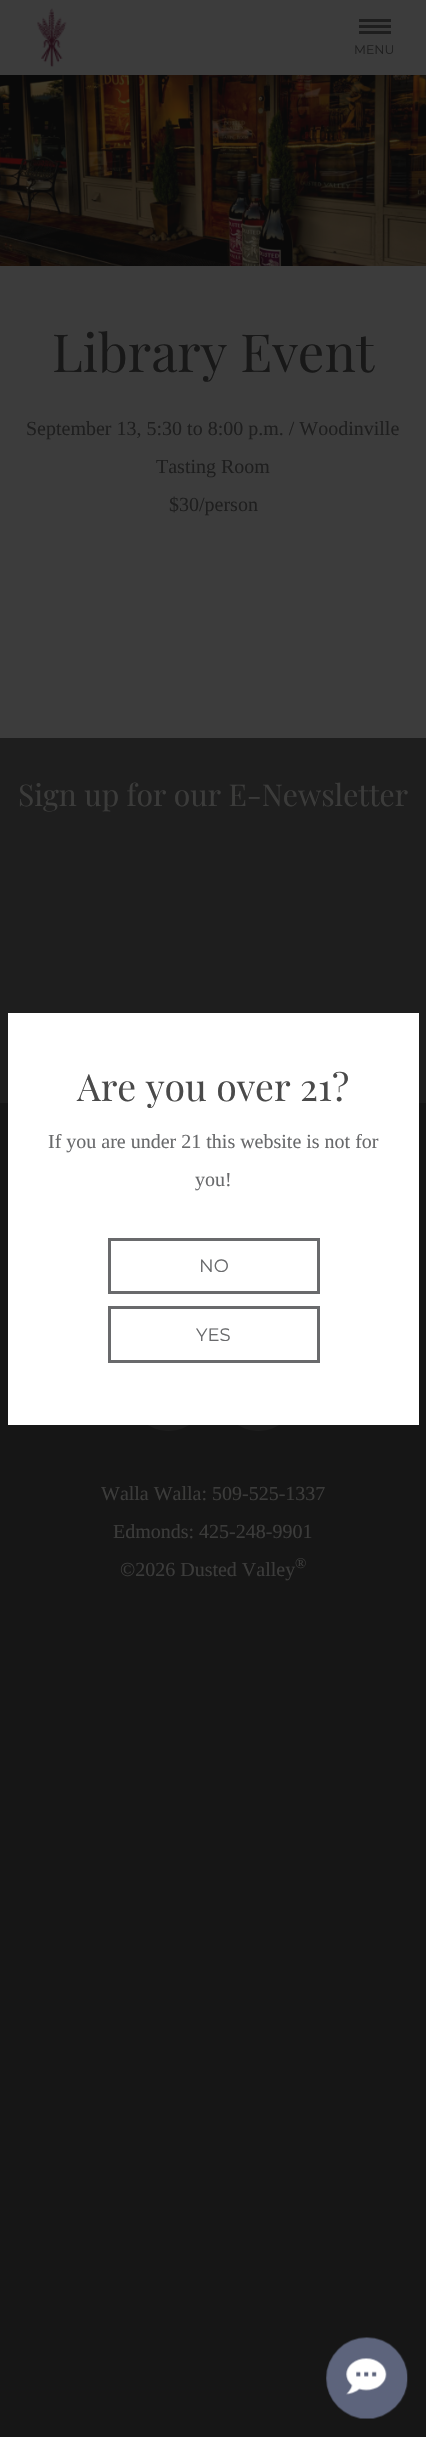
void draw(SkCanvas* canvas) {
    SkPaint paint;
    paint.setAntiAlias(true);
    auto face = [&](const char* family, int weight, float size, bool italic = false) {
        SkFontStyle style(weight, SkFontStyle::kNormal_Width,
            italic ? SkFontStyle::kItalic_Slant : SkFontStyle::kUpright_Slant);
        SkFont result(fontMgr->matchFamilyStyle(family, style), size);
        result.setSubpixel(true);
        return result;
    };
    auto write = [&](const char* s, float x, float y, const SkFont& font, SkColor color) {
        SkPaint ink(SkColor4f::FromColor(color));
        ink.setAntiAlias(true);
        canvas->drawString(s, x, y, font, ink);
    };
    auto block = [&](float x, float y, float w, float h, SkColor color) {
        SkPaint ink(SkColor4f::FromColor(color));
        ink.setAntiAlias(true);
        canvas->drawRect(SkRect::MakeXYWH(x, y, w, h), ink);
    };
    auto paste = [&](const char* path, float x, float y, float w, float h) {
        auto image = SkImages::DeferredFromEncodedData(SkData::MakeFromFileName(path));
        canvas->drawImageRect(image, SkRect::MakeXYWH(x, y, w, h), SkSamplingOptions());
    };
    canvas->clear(SkColorSetRGB(22, 22, 22));
    block(0, 0, 426, 75, SkColorSetRGB(60, 60, 60));
    paste("pic1.png", 37, 8, 30, 59);
    block(359, 19, 32, 3, SkColorSetRGB(30, 30, 30));
    block(359, 25, 32, 3, SkColorSetRGB(30, 30, 30));
    block(359, 31, 32, 3, SkColorSetRGB(30, 30, 30));
    auto kFont1 = face("Montserrat", 100, 12.5f);
    write("MENU", 354, 54, kFont1, SkColorSetRGB(30, 30, 30));
    paste("pic2.png", 0, 75, 426, 191);
    block(0, 266, 426, 472, SkColorSetRGB(60, 60, 60));
    auto kFont2 = face("Playfair Display", 400, 52.5f);
    write("Library Event", 52, 372, kFont2, SkColorSetRGB(24, 24, 24));
    auto kFont3 = face("Liberation Serif", 400, 20);
    write("September 13, 5:30 to 8:00 p.m. / Woodinville", 26, 435, kFont3, SkColorSetRGB(30, 30, 30));
    write("Tasting Room", 156, 473, kFont3, SkColorSetRGB(30, 30, 30));
    write("$30/person", 169, 511, kFont3, SkColorSetRGB(30, 30, 30));
    block(0, 738, 426, 365, SkColorSetRGB(30, 30, 30));
    auto kFont4 = face("Playfair Display", 400, 30);
    write("Sign up for our E-Newsletter", 18, 806, kFont4, SkColorSetRGB(59, 59, 58));
    paint.setColor(SkColorSetRGB(30, 30, 30));
    canvas->drawCircle(168.5f, 1393.5f, 37.5f, paint);
    canvas->drawCircle(258.5f, 1393.5f, 37.5f, paint);
    write("Walla Walla: 509-525-1337", 101, 1500, kFont3, SkColorSetRGB(59, 59, 58));
    write("Edmonds: 425-248-9901", 113, 1538, kFont3, SkColorSetRGB(59, 59, 58));
    write("©2026 Dusted Valley", 120, 1576, kFont3, SkColorSetRGB(59, 59, 58));
    auto kFont5 = face("Liberation Serif", 400, 15);
    write("®", 295, 1568, kFont5, SkColorSetRGB(59, 59, 58));
    block(8, 1013, 411, 412, SK_ColorWHITE);
    auto kFont6 = face("Playfair Display", 400, 37.5f);
    write("Are you over 21?", 77, 1101, kFont6, SkColorSetRGB(74, 74, 74));
    write("If you are under 21 this website is not for", 48, 1148, kFont3, SkColorSetRGB(105, 106, 108));
    write("you!", 195, 1186, kFont3, SkColorSetRGB(105, 106, 108));
    paint.setStyle(SkPaint::kStroke_Style);
    paint.setStrokeWidth(3);
    paint.setColor(SkColorSetRGB(105, 106, 108));
    canvas->drawRect(SkRect::MakeXYWH(109.5f, 1239.5f, 209, 53), paint);
    auto kFont7 = face("Montserrat", 100, 18);
    write("NO", 199, 1272, kFont7, SkColorSetRGB(105, 106, 108));
    canvas->drawRect(SkRect::MakeXYWH(109.5f, 1307.5f, 209, 54), paint);
    write("YES", 196, 1341, kFont7, SkColorSetRGB(105, 106, 108));
    paste("pic3.png", 326, 2337, 82, 82);
}
